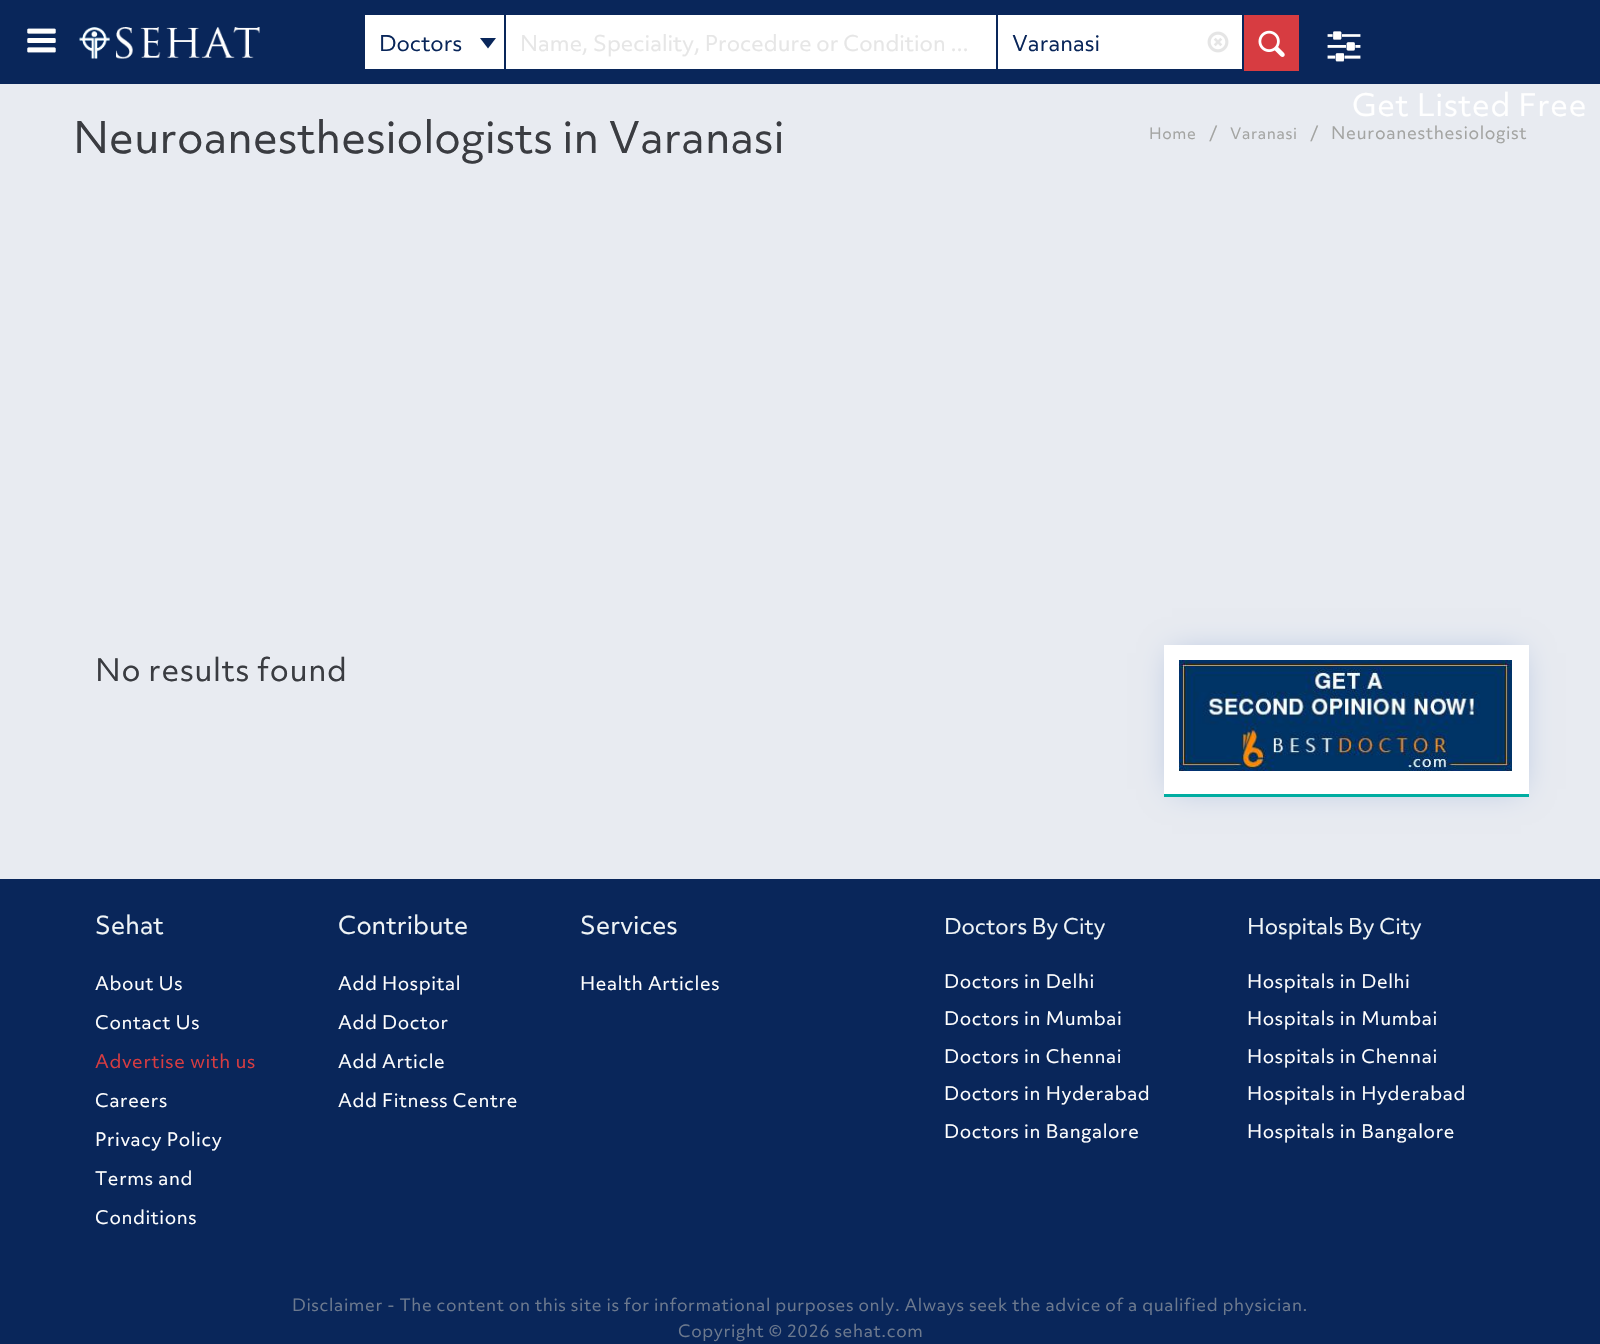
void draw(SkCanvas* canvas) {
    SkPaint paint;
    paint.setAntiAlias(true);
    auto face = [&](const char* family, int weight, float size, bool italic = false) {
        SkFontStyle style(weight, SkFontStyle::kNormal_Width,
            italic ? SkFontStyle::kItalic_Slant : SkFontStyle::kUpright_Slant);
        SkFont result(fontMgr->matchFamilyStyle(family, style), size);
        result.setSubpixel(true);
        return result;
    };
    auto write = [&](const char* s, float x, float y, const SkFont& font, SkColor color) {
        SkPaint ink(SkColor4f::FromColor(color));
        ink.setAntiAlias(true);
        canvas->drawString(s, x, y, font, ink);
    };
    auto writeSpaced = [&](const char* s, float x, float y, const SkFont& font, const SkPaint& ink, float letter, float word) {
        std::vector<SkGlyphID> glyphs(font.countText(s, strlen(s), SkTextEncoding::kUTF8));
        std::vector<float> xs(glyphs.size());
        font.textToGlyphs(s, strlen(s), SkTextEncoding::kUTF8, glyphs);
        font.getXPos(glyphs, xs, x);
        float extra = 0;
        for (size_t i = 0; i < glyphs.size(); i++) {
            xs[i] += extra;
            extra += letter + word * (glyphs[i] == font.unicharToGlyph(' '));
        }
        canvas->drawTextBlob(SkTextBlob::MakeFromPosHGlyphs(glyphs, xs, y, font), 0, 0, ink);
    };
    auto block = [&](float x, float y, float w, float h, SkColor color) {
        SkPaint ink(SkColor4f::FromColor(color));
        ink.setAntiAlias(true);
        canvas->drawRect(SkRect::MakeXYWH(x, y, w, h), ink);
    };
    auto paste = [&](const char* path, float x, float y, float w, float h) {
        auto image = SkImages::DeferredFromEncodedData(SkData::MakeFromFileName(path));
        canvas->drawImageRect(image, SkRect::MakeXYWH(x, y, w, h), SkSamplingOptions());
    };
    canvas->clear(SkColorSetRGB(232, 235, 241));
    block(0, 0, 1600, 84, SkColorSetRGB(9, 38, 90));
    auto kFont1 = face("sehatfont", 400, 33);
    write("0", 25, 57, kFont1, SK_ColorWHITE);
    paste("pic1.png", 79, 27, 181, 32);
    block(365, 15, 139, 54, SK_ColorWHITE);
    auto kFont2 = face("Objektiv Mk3", 400, 21);
    write("Doctors", 379, 51, kFont2, SkColorSetRGB(9, 38, 90));
    paint.setColor(SkColorSetRGB(9, 38, 90));
    canvas->drawPath(SkPathBuilder().moveTo(480, 38).lineTo(496, 38).lineTo(488, 48.5f).close().detach(), paint);
    block(506, 15, 490, 54, SK_ColorWHITE);
    write("Name, Speciality, Procedure or Condition ...", 520, 51, kFont2, SkColorSetRGB(230, 230, 230));
    block(998, 15, 244, 54, SK_ColorWHITE);
    write("Varanasi", 1012, 51, kFont2, SkColorSetRGB(9, 38, 90));
    paste("pic2.png", 1207, 31, 22, 22);
    block(1244, 15, 55, 56, SkColorSetRGB(215, 60, 65));
    paste("pic3.png", 1258, 30, 27, 27);
    auto kFont3 = face("sehatfont", 400, 38);
    write("]", 1325, 64, kFont3, SK_ColorWHITE);
    auto kFont4 = face("Objektiv Mk3", 400, 30);
    paint.setColor(SK_ColorWHITE);
    writeSpaced("Get Listed Free", 1352, 116, kFont4, paint, 0.6f, 0);
    auto kFont5 = face("Objektiv Mk3", 400, 42);
    write("Neuroanesthesiologists in Varanasi", 73, 153, kFont5, SkColorSetRGB(58, 60, 65));
    auto kFont6 = face("Objektiv Mk3", 400, 15);
    paint.setColor(SkColorSetRGB(163, 164, 162));
    writeSpaced("Home", 1149, 139, kFont6, paint, 0.6f, 0);
    auto kFont7 = face("Objektiv Mk3", 400, 16.75f);
    writeSpaced("/", 1209, 139, kFont7, paint, 0.6f, 0);
    writeSpaced("Varanasi", 1230, 139, kFont6, paint, 0.6f, 0);
    writeSpaced("/", 1310, 139, kFont7, paint, 0.6f, 0);
    writeSpaced("Neuroanesthesiologist", 1331, 139, kFont7, paint, 0.6f, 0);
    paint.setColor(SkColorSetRGB(58, 60, 65));
    writeSpaced("No results found", 95, 681, kFont4, paint, 0.6f, 0);
    paint.setColor(SkColorSetRGB(175, 192, 222));
    paint.setMaskFilter(SkMaskFilter::MakeBlur(kNormal_SkBlurStyle, 15));
    canvas->drawRect(SkRect::MakeXYWH(1172, 653, 349, 136), paint);
    paint.setMaskFilter(nullptr);
    block(1164, 645, 365, 149, SK_ColorWHITE);
    block(1164, 794, 365, 3, SkColorSetRGB(0, 173, 161));
    paste("pic4.png", 1179, 660, 333, 111);
    block(0, 879, 1600, 465, SkColorSetRGB(9, 38, 90));
    auto kFont8 = face("Objektiv Mk3", 400, 24);
    write("Sehat", 95, 934, kFont8, SkColorSetRGB(240, 245, 247));
    auto kFont9 = face("Objektiv Mk3", 400, 18);
    paint.setColor(SK_ColorWHITE);
    writeSpaced("About Us", 95, 990, kFont9, paint, 0.6f, 0);
    writeSpaced("Contact Us", 95, 1029, kFont9, paint, 0.6f, 0);
    paint.setColor(SkColorSetRGB(215, 60, 65));
    writeSpaced("Advertise with us", 95, 1068, kFont9, paint, 0.6f, 0);
    paint.setColor(SK_ColorWHITE);
    writeSpaced("Careers", 95, 1107, kFont9, paint, 0.6f, 0);
    writeSpaced("Privacy Policy", 95, 1146, kFont9, paint, 0.6f, 0);
    writeSpaced("Terms and", 95, 1185, kFont9, paint, 0.6f, 0);
    writeSpaced("Conditions", 95, 1224, kFont9, paint, 0.6f, 0);
    write("Contribute", 338, 934, kFont8, SkColorSetRGB(240, 245, 247));
    writeSpaced("Add Hospital", 338, 990, kFont9, paint, 0.6f, 0);
    writeSpaced("Add Doctor", 338, 1029, kFont9, paint, 0.6f, 0);
    writeSpaced("Add Article", 338, 1068, kFont9, paint, 0.6f, 0);
    writeSpaced("Add Fitness Centre", 338, 1107, kFont9, paint, 0.6f, 0);
    write("Services", 580, 934, kFont8, SkColorSetRGB(240, 245, 247));
    writeSpaced("Health Articles", 580, 990, kFont9, paint, 0.6f, 0);
    write("Doctors By City", 944, 934, kFont2, SkColorSetRGB(240, 245, 247));
    writeSpaced("Doctors in Delhi", 944, 988, kFont9, paint, 0.6f, 0);
    writeSpaced("Doctors in Mumbai", 944, 1025, kFont9, paint, 0.6f, 0);
    writeSpaced("Doctors in Chennai", 944, 1063, kFont9, paint, 0.6f, 0);
    writeSpaced("Doctors in Hyderabad", 944, 1100, kFont9, paint, 0.6f, 0);
    writeSpaced("Doctors in Bangalore", 944, 1138, kFont9, paint, 0.6f, 0);
    write("Hospitals By City", 1247, 934, kFont2, SkColorSetRGB(240, 245, 247));
    writeSpaced("Hospitals in Delhi", 1247, 988, kFont9, paint, 0.6f, 0);
    writeSpaced("Hospitals in Mumbai", 1247, 1025, kFont9, paint, 0.6f, 0);
    writeSpaced("Hospitals in Chennai", 1247, 1063, kFont9, paint, 0.6f, 0);
    writeSpaced("Hospitals in Hyderabad", 1247, 1100, kFont9, paint, 0.6f, 0);
    writeSpaced("Hospitals in Bangalore", 1247, 1138, kFont9, paint, 0.6f, 0);
    auto kFont10 = face("Objektiv Mk3", 400, 16.5f);
    paint.setColor(SkColorSetRGB(108, 121, 142));
    writeSpaced("Disclaimer - The content on this site is for informational purposes only. Always seek the advice of a qualified physician.", 292, 1311, kFont10, paint, 0.6f, 0);
    writeSpaced("Copyright © 2026 sehat.com", 678, 1337, kFont10, paint, 0.6f, 0);
}
